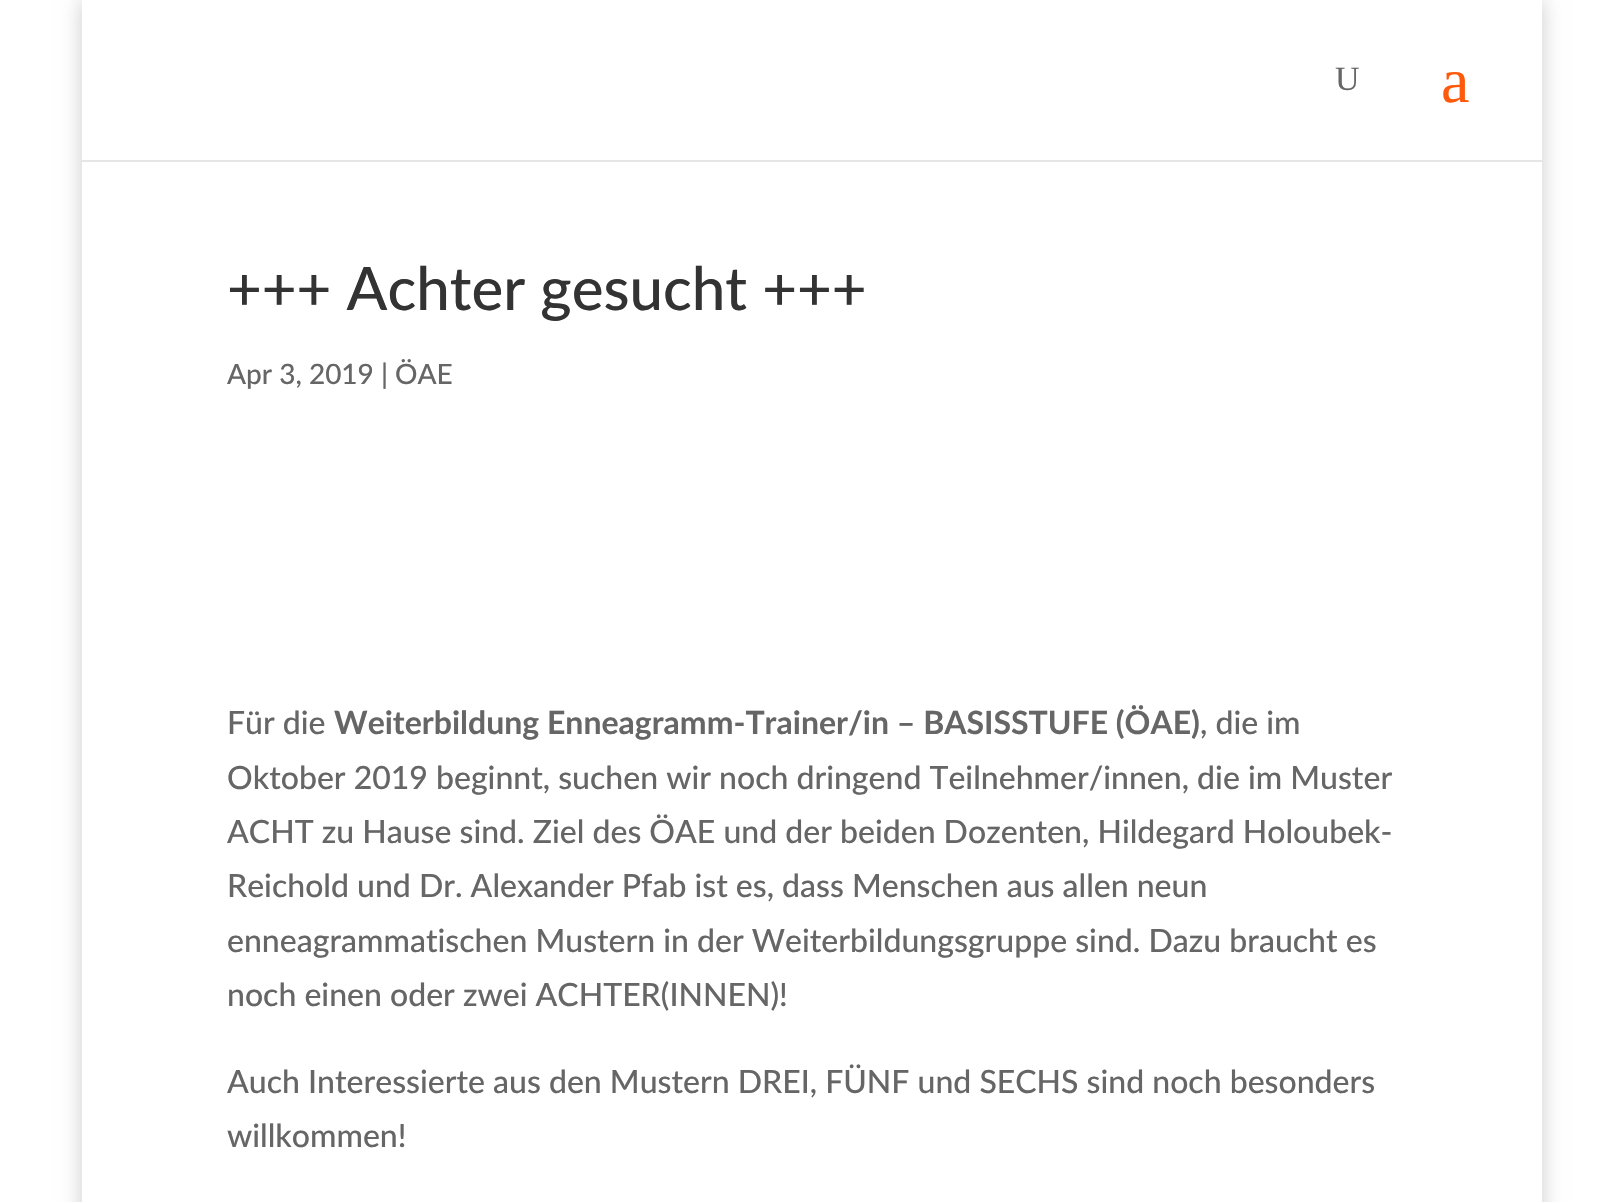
void draw(SkCanvas* canvas) {
    SkPaint paint;
    paint.setAntiAlias(true);
    auto face = [&](const char* family, int weight, float size, bool italic = false) {
        SkFontStyle style(weight, SkFontStyle::kNormal_Width,
            italic ? SkFontStyle::kItalic_Slant : SkFontStyle::kUpright_Slant);
        SkFont result(fontMgr->matchFamilyStyle(family, style), size);
        result.setSubpixel(true);
        return result;
    };
    auto write = [&](const char* s, float x, float y, const SkFont& font, SkColor color) {
        SkPaint ink(SkColor4f::FromColor(color));
        ink.setAntiAlias(true);
        canvas->drawString(s, x, y, font, ink);
    };
    auto block = [&](float x, float y, float w, float h, SkColor color) {
        SkPaint ink(SkColor4f::FromColor(color));
        ink.setAntiAlias(true);
        canvas->drawRect(SkRect::MakeXYWH(x, y, w, h), ink);
    };
    canvas->clear(SK_ColorWHITE);
    canvas->save();
    canvas->clipPath(SkPathBuilder(SkPathFillType::kEvenOdd).moveTo(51, 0).lineTo(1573, 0).lineTo(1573, 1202).lineTo(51, 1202).close().moveTo(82, 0).lineTo(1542, 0).lineTo(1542, 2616).lineTo(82, 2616).close().detach(), true);
    paint.setColor(SkColorSetARGB(51, 0, 0, 0));
    paint.setMaskFilter(SkMaskFilter::MakeBlur(kNormal_SkBlurStyle, 10));
    canvas->drawRect(SkRect::MakeXYWH(82, 0, 1460, 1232), paint);
    paint.setMaskFilter(nullptr);
    canvas->restore();
    block(82, 160, 1460, 2, SkColorSetRGB(230, 230, 230));
    auto kFont1 = face("Liberation Serif", 400, 34);
    write("U", 1335, 90, kFont1, SkColorSetRGB(102, 102, 102));
    auto kFont2 = face("Liberation Serif", 400, 64);
    write("a", 1441, 102, kFont2, SkColorSetRGB(255, 89, 12));
    auto kFont3 = face("Lato", 500, 60);
    write("+++ Achter gesucht +++", 227, 310, kFont3, SkColorSetRGB(51, 51, 51));
    auto kFont4 = face("Lato", 500, 28);
    write("Apr 3, 2019 | ÖAE", 227, 384, kFont4, SkColorSetRGB(102, 102, 102));
    auto kFont5 = face("Lato", 500, 32);
    write("Für die", 227, 734, kFont5, SkColorSetRGB(102, 102, 102));
    auto kFont6 = face("Lato", 700, 32);
    write("Weiterbildung Enneagramm-Trainer/in – BASISSTUFE (ÖAE)", 334, 734, kFont6, SkColorSetRGB(102, 102, 102));
    write(", die im", 1200, 734, kFont5, SkColorSetRGB(102, 102, 102));
    write("Oktober 2019 beginnt, suchen wir noch dringend Teilnehmer/innen, die im Muster", 227, 789, kFont5, SkColorSetRGB(102, 102, 102));
    write("ACHT zu Hause sind. Ziel des ÖAE und der beiden Dozenten, Hildegard Holoubek-", 227, 843, kFont5, SkColorSetRGB(102, 102, 102));
    write("Reichold und Dr. Alexander Pfab ist es, dass Menschen aus allen neun", 227, 897, kFont5, SkColorSetRGB(102, 102, 102));
    write("enneagrammatischen Mustern in der Weiterbildungsgruppe sind. Dazu braucht es", 227, 952, kFont5, SkColorSetRGB(102, 102, 102));
    write("noch einen oder zwei ACHTER(INNEN)!", 227, 1006, kFont5, SkColorSetRGB(102, 102, 102));
    write("Auch Interessierte aus den Mustern DREI, FÜNF und SECHS sind noch besonders", 227, 1093, kFont5, SkColorSetRGB(102, 102, 102));
    write("willkommen!", 227, 1147, kFont5, SkColorSetRGB(102, 102, 102));
}
